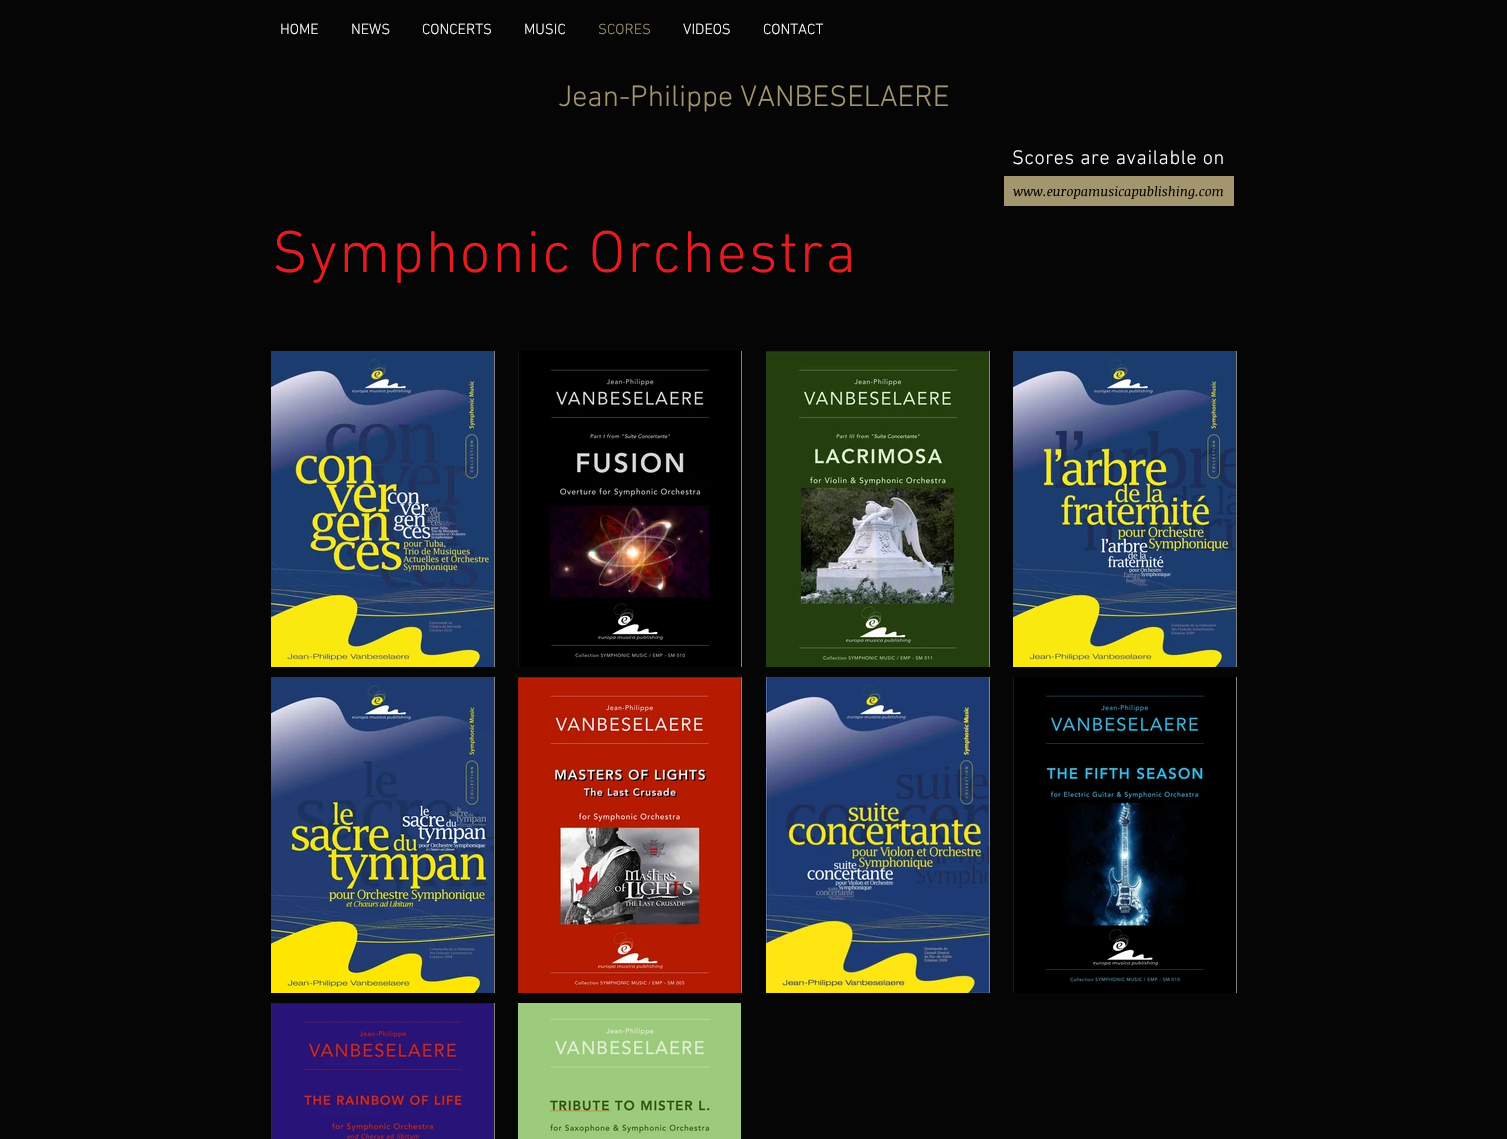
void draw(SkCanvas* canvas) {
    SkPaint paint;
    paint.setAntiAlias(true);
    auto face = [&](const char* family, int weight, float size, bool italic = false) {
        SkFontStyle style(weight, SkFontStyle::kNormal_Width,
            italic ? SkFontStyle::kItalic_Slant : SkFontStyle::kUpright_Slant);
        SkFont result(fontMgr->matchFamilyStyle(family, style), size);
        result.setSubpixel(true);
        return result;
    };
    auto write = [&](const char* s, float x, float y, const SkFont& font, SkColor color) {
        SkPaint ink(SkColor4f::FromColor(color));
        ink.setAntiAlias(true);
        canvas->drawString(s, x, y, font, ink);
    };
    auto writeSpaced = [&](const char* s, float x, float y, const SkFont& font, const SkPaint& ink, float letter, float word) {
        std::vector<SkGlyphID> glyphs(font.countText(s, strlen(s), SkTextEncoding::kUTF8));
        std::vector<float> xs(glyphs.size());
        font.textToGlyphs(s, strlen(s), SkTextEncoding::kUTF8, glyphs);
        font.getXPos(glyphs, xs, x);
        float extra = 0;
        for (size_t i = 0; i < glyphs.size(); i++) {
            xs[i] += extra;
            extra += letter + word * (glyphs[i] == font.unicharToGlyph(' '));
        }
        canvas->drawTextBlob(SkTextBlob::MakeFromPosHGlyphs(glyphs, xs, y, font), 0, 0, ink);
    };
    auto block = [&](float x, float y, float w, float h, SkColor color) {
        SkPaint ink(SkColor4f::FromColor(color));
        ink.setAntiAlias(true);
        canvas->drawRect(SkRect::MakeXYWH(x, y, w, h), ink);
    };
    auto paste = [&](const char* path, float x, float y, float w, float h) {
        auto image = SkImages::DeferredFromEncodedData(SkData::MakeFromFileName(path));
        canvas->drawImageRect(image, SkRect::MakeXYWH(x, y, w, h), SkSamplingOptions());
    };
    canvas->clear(SkColorSetRGB(5, 5, 5));
    auto kFont1 = face("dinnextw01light", 300, 15);
    write("HOME", 280, 34, kFont1, SK_ColorWHITE);
    write("NEWS", 351, 34, kFont1, SK_ColorWHITE);
    write("CONCERTS", 422, 34, kFont1, SK_ColorWHITE);
    write("MUSIC", 524, 34, kFont1, SK_ColorWHITE);
    write("SCORES", 598, 34, kFont1, SkColorSetRGB(163, 149, 109));
    write("VIDEOS", 683, 34, kFont1, SK_ColorWHITE);
    write("CONTACT", 763, 34, kFont1, SK_ColorWHITE);
    auto kFont2 = face("dinnextw01light", 300, 30);
    write("Jean-Philippe VANBESELAERE", 558, 106, kFont2, SkColorSetRGB(163, 149, 109));
    auto kFont3 = face("dinnextw01light", 300, 20);
    paint.setColor(SK_ColorWHITE);
    writeSpaced("Scores are available on", 1012, 164, kFont3, paint, 0.6f, 0);
    block(1004, 176, 230, 30, SkColorSetRGB(163, 149, 109));
    auto kFont4 = face("Noticia Text", 400, 13, true);
    write("www.europamusicapublishing.com", 1013, 196, kFont4, SkColorSetRGB(5, 5, 5));
    auto kFont5 = face("dinnextw01light", 300, 60);
    paint.setColor(SkColorSetRGB(226, 28, 33));
    writeSpaced("Symphonic Orchestra", 272, 272, kFont5, paint, 1.75f, 0);
    block(494, 351, 1, 316, SkColorSetRGB(128, 128, 128));
    paste("pic1.png", 271, 351, 223, 316);
    block(741, 351, 1, 316, SkColorSetRGB(128, 128, 128));
    paste("pic2.png", 518, 351, 223, 316);
    block(989, 351, 1, 316, SkColorSetRGB(128, 128, 128));
    paste("pic3.png", 766, 351, 223, 316);
    block(1236, 351, 1, 316, SkColorSetRGB(128, 128, 128));
    paste("pic4.png", 1013, 351, 223, 316);
    block(494, 677, 1, 316, SkColorSetRGB(128, 128, 128));
    paste("pic5.png", 271, 677, 223, 316);
    block(741, 677, 1, 316, SkColorSetRGB(128, 128, 128));
    paste("pic6.png", 518, 677, 223, 316);
    block(989, 677, 1, 316, SkColorSetRGB(128, 128, 128));
    paste("pic7.png", 766, 677, 223, 316);
    block(1236, 677, 1, 316, SkColorSetRGB(128, 128, 128));
    paste("pic8.png", 1013, 677, 223, 316);
    block(494, 1003, 1, 136, SkColorSetRGB(128, 128, 128));
    paste("pic9.png", 271, 1003, 223, 136);
    paste("pic10.png", 518, 1003, 223, 136);
}
